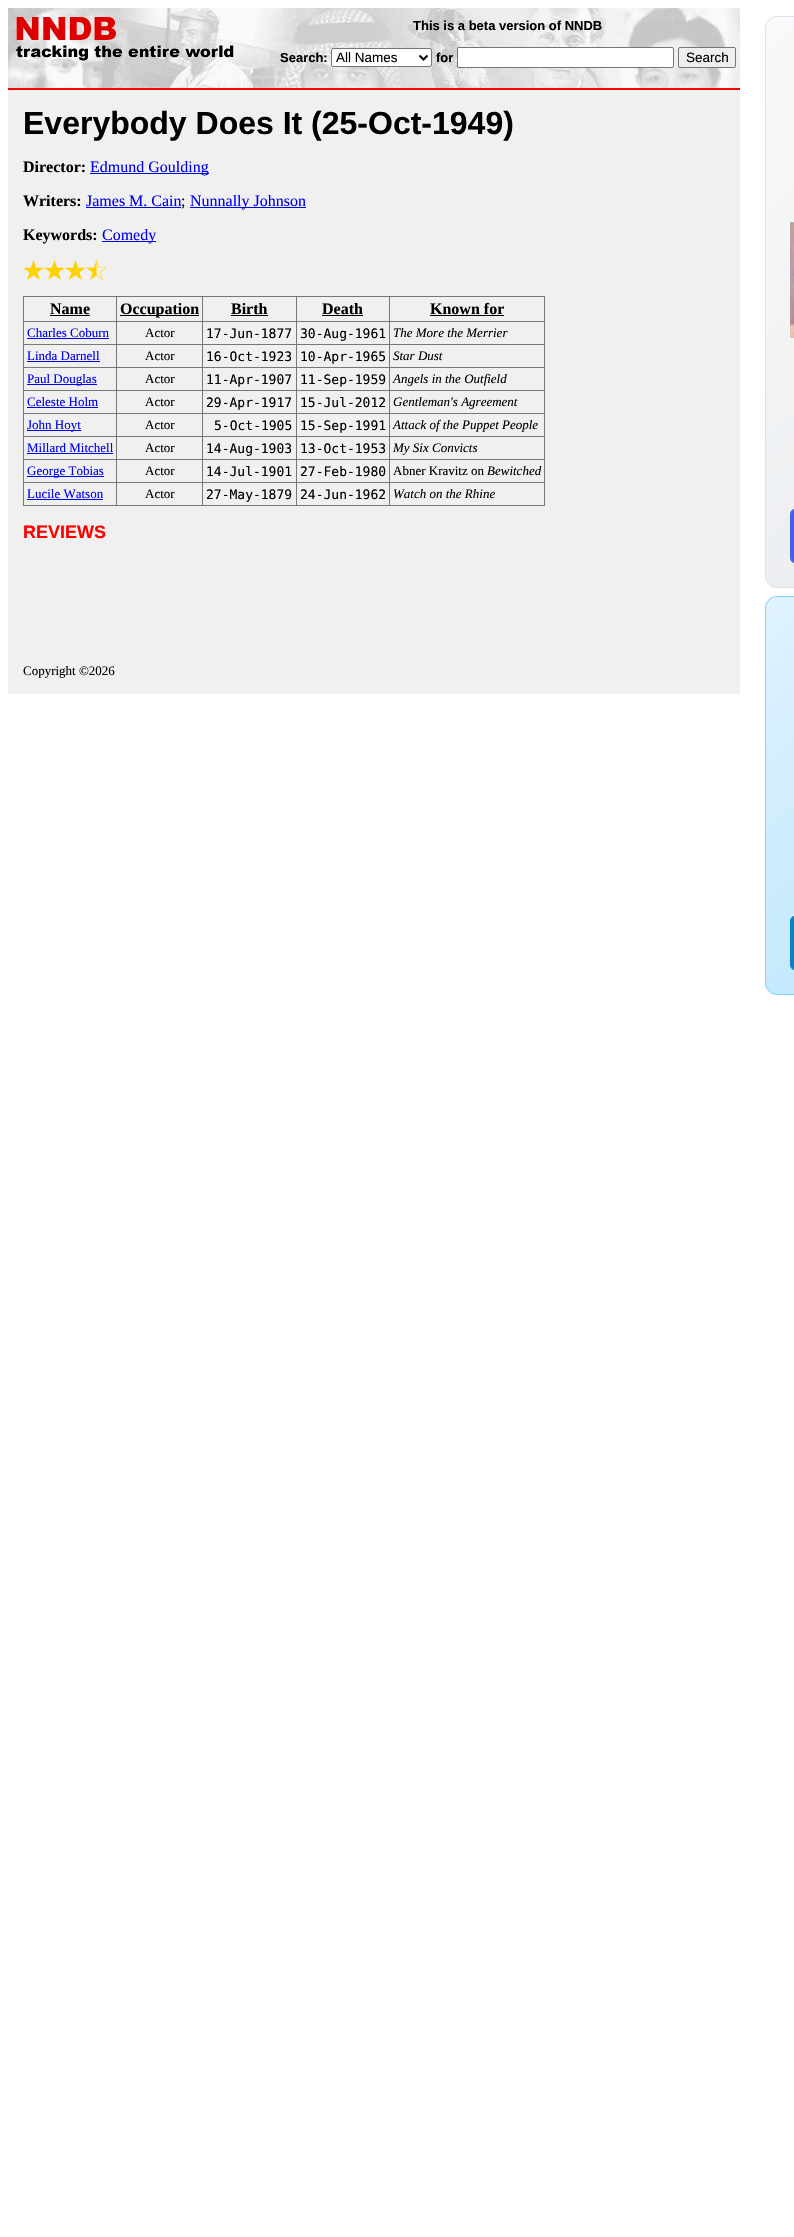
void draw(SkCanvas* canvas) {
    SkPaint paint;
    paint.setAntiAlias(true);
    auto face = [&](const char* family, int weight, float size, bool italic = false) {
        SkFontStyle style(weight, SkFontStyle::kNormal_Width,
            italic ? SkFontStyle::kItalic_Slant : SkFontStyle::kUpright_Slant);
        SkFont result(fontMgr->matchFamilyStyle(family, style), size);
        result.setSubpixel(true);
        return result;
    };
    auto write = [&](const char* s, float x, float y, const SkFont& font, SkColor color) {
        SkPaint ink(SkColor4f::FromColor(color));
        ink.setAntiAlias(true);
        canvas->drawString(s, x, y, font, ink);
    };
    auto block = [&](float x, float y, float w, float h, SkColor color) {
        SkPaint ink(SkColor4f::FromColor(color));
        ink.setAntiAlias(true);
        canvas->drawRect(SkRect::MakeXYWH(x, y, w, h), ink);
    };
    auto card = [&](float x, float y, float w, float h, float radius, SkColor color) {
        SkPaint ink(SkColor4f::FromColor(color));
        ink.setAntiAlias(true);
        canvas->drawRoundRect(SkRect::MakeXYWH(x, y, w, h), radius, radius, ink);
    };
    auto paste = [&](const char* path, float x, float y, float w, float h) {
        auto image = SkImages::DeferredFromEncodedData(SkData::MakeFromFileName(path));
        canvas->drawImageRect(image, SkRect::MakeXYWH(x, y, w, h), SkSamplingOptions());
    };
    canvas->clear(SK_ColorWHITE);
    paste("pic1.png", 8, 8, 732, 80);
    paste("pic2.png", 16, 17, 218, 44);
    auto kFont1 = face("Liberation Sans", 700, 13);
    write("This is a beta version of NNDB", 413, 30, kFont1, SK_ColorBLACK);
    write("Search:", 280, 62, kFont1, SK_ColorBLACK);
    paint.setColor(SK_ColorWHITE);
    canvas->drawRoundRect(SkRect::MakeXYWH(331.5f, 48.5f, 100, 18), 1.5f, 1.5f, paint);
    paint.setStyle(SkPaint::kStroke_Style);
    paint.setStrokeWidth(1);
    paint.setColor(SkColorSetRGB(118, 118, 118));
    canvas->drawRoundRect(SkRect::MakeXYWH(331.5f, 48.5f, 100, 18), 1.5f, 1.5f, paint);
    paint.setStrokeWidth(2);
    paint.setColor(SK_ColorBLACK);
    canvas->drawPath(SkPathBuilder().moveTo(419.5f, 55.5f).lineTo(423.5f, 59.5f).lineTo(427.5f, 55.5f).detach(), paint);
    auto kFont2 = face("Liberation Sans", 400, 13.5f);
    write("All Names", 336, 62, kFont2, SK_ColorBLACK);
    write("for", 436, 62, kFont1, SK_ColorBLACK);
    paint.setStyle(SkPaint::kFill_Style);
    paint.setColor(SK_ColorWHITE);
    canvas->drawRoundRect(SkRect::MakeXYWH(457.5f, 47.5f, 216, 20), 1.5f, 1.5f, paint);
    paint.setStyle(SkPaint::kStroke_Style);
    paint.setStrokeWidth(1);
    paint.setColor(SkColorSetRGB(118, 118, 118));
    canvas->drawRoundRect(SkRect::MakeXYWH(457.5f, 47.5f, 216, 20), 1.5f, 1.5f, paint);
    paint.setStyle(SkPaint::kFill_Style);
    paint.setColor(SkColorSetRGB(239, 239, 239));
    canvas->drawRoundRect(SkRect::MakeXYWH(678.5f, 47.5f, 57, 20), 1.5f, 1.5f, paint);
    paint.setStyle(SkPaint::kStroke_Style);
    paint.setColor(SkColorSetRGB(118, 118, 118));
    canvas->drawRoundRect(SkRect::MakeXYWH(678.5f, 47.5f, 57, 20), 1.5f, 1.5f, paint);
    write("Search", 686, 62, kFont2, SK_ColorBLACK);
    block(8, 88, 732, 2, SkColorSetRGB(255, 0, 0));
    block(8, 90, 732, 604, SkColorSetRGB(240, 240, 240));
    auto kFont3 = face("Liberation Sans", 700, 32);
    write("Everybody Does It (25-Oct-1949)", 23, 134, kFont3, SK_ColorBLACK);
    auto kFont4 = face("Liberation Serif", 700, 16);
    write("Director:", 23, 172, kFont4, SK_ColorBLACK);
    block(90, 173, 119, 1, SkColorSetRGB(0, 0, 238));
    auto kFont5 = face("Liberation Serif", 400, 16);
    write("Edmund Goulding", 90, 172, kFont5, SkColorSetRGB(0, 0, 238));
    write("Writers:", 23, 206, kFont4, SK_ColorBLACK);
    write("James M. Cain", 86, 206, kFont5, SkColorSetRGB(0, 0, 238));
    block(86, 207, 95, 1, SkColorSetRGB(0, 0, 238));
    write(";", 181, 206, kFont5, SK_ColorBLACK);
    block(190, 207, 116, 1, SkColorSetRGB(0, 0, 238));
    write("Nunnally Johnson", 190, 206, kFont5, SkColorSetRGB(0, 0, 238));
    write("Keywords:", 23, 240, kFont4, SK_ColorBLACK);
    block(102, 241, 54, 1, SkColorSetRGB(0, 0, 238));
    write("Comedy", 102, 240, kFont5, SkColorSetRGB(0, 0, 238));
    paste("pic3.png", 23, 260, 21, 20);
    paste("pic3.png", 44, 260, 21, 20);
    paste("pic3.png", 65, 260, 21, 20);
    paste("pic4.png", 86, 260, 21, 20);
    block(23, 296, 522, 1, SkColorSetRGB(119, 119, 119));
    block(544, 296, 1, 210, SkColorSetRGB(119, 119, 119));
    block(23, 505, 522, 1, SkColorSetRGB(119, 119, 119));
    block(23, 296, 1, 210, SkColorSetRGB(119, 119, 119));
    write("Name", 50, 314, kFont4, SK_ColorBLACK);
    block(50, 315, 40, 1, SK_ColorBLACK);
    block(389, 321, 156, 1, SkColorSetRGB(119, 119, 119));
    block(389, 344, 156, 1, SkColorSetRGB(119, 119, 119));
    block(389, 367, 156, 1, SkColorSetRGB(119, 119, 119));
    block(389, 390, 156, 1, SkColorSetRGB(119, 119, 119));
    block(389, 413, 156, 1, SkColorSetRGB(119, 119, 119));
    block(389, 436, 156, 1, SkColorSetRGB(119, 119, 119));
    block(389, 459, 156, 1, SkColorSetRGB(119, 119, 119));
    block(389, 482, 156, 1, SkColorSetRGB(119, 119, 119));
    block(389, 482, 1, 24, SkColorSetRGB(119, 119, 119));
    block(296, 482, 94, 1, SkColorSetRGB(119, 119, 119));
    block(389, 459, 1, 24, SkColorSetRGB(119, 119, 119));
    block(296, 459, 94, 1, SkColorSetRGB(119, 119, 119));
    block(389, 436, 1, 24, SkColorSetRGB(119, 119, 119));
    block(296, 436, 94, 1, SkColorSetRGB(119, 119, 119));
    block(389, 413, 1, 24, SkColorSetRGB(119, 119, 119));
    block(296, 413, 94, 1, SkColorSetRGB(119, 119, 119));
    block(389, 390, 1, 24, SkColorSetRGB(119, 119, 119));
    block(296, 390, 94, 1, SkColorSetRGB(119, 119, 119));
    block(389, 367, 1, 24, SkColorSetRGB(119, 119, 119));
    block(296, 367, 94, 1, SkColorSetRGB(119, 119, 119));
    block(389, 344, 1, 24, SkColorSetRGB(119, 119, 119));
    block(296, 344, 94, 1, SkColorSetRGB(119, 119, 119));
    block(389, 321, 1, 24, SkColorSetRGB(119, 119, 119));
    block(296, 321, 94, 1, SkColorSetRGB(119, 119, 119));
    block(296, 482, 1, 24, SkColorSetRGB(119, 119, 119));
    block(202, 482, 95, 1, SkColorSetRGB(119, 119, 119));
    block(296, 459, 1, 24, SkColorSetRGB(119, 119, 119));
    block(202, 459, 95, 1, SkColorSetRGB(119, 119, 119));
    block(296, 436, 1, 24, SkColorSetRGB(119, 119, 119));
    block(202, 436, 95, 1, SkColorSetRGB(119, 119, 119));
    block(296, 413, 1, 24, SkColorSetRGB(119, 119, 119));
    block(202, 413, 95, 1, SkColorSetRGB(119, 119, 119));
    block(296, 390, 1, 24, SkColorSetRGB(119, 119, 119));
    block(202, 390, 95, 1, SkColorSetRGB(119, 119, 119));
    block(296, 367, 1, 24, SkColorSetRGB(119, 119, 119));
    block(202, 367, 95, 1, SkColorSetRGB(119, 119, 119));
    block(296, 344, 1, 24, SkColorSetRGB(119, 119, 119));
    block(202, 344, 95, 1, SkColorSetRGB(119, 119, 119));
    block(296, 321, 1, 24, SkColorSetRGB(119, 119, 119));
    block(202, 321, 95, 1, SkColorSetRGB(119, 119, 119));
    block(202, 482, 1, 24, SkColorSetRGB(119, 119, 119));
    block(116, 482, 87, 1, SkColorSetRGB(119, 119, 119));
    block(202, 459, 1, 24, SkColorSetRGB(119, 119, 119));
    block(116, 459, 87, 1, SkColorSetRGB(119, 119, 119));
    block(202, 436, 1, 24, SkColorSetRGB(119, 119, 119));
    block(116, 436, 87, 1, SkColorSetRGB(119, 119, 119));
    block(202, 413, 1, 24, SkColorSetRGB(119, 119, 119));
    block(116, 413, 87, 1, SkColorSetRGB(119, 119, 119));
    block(202, 390, 1, 24, SkColorSetRGB(119, 119, 119));
    block(116, 390, 87, 1, SkColorSetRGB(119, 119, 119));
    block(202, 367, 1, 24, SkColorSetRGB(119, 119, 119));
    block(116, 367, 87, 1, SkColorSetRGB(119, 119, 119));
    block(202, 344, 1, 24, SkColorSetRGB(119, 119, 119));
    block(116, 344, 87, 1, SkColorSetRGB(119, 119, 119));
    block(202, 321, 1, 24, SkColorSetRGB(119, 119, 119));
    block(116, 321, 87, 1, SkColorSetRGB(119, 119, 119));
    block(116, 482, 1, 24, SkColorSetRGB(119, 119, 119));
    block(23, 482, 94, 1, SkColorSetRGB(119, 119, 119));
    block(116, 459, 1, 24, SkColorSetRGB(119, 119, 119));
    block(23, 459, 94, 1, SkColorSetRGB(119, 119, 119));
    block(116, 436, 1, 24, SkColorSetRGB(119, 119, 119));
    block(23, 436, 94, 1, SkColorSetRGB(119, 119, 119));
    block(116, 413, 1, 24, SkColorSetRGB(119, 119, 119));
    block(23, 413, 94, 1, SkColorSetRGB(119, 119, 119));
    block(116, 390, 1, 24, SkColorSetRGB(119, 119, 119));
    block(23, 390, 94, 1, SkColorSetRGB(119, 119, 119));
    block(116, 367, 1, 24, SkColorSetRGB(119, 119, 119));
    block(23, 367, 94, 1, SkColorSetRGB(119, 119, 119));
    block(116, 344, 1, 24, SkColorSetRGB(119, 119, 119));
    block(23, 344, 94, 1, SkColorSetRGB(119, 119, 119));
    block(116, 321, 1, 24, SkColorSetRGB(119, 119, 119));
    block(23, 321, 94, 1, SkColorSetRGB(119, 119, 119));
    block(116, 296, 1, 26, SkColorSetRGB(119, 119, 119));
    block(120, 315, 79, 1, SK_ColorBLACK);
    write("Occupation", 120, 314, kFont4, SK_ColorBLACK);
    block(202, 296, 1, 26, SkColorSetRGB(119, 119, 119));
    write("Birth", 231, 314, kFont4, SK_ColorBLACK);
    block(231, 315, 37, 1, SK_ColorBLACK);
    block(296, 296, 1, 26, SkColorSetRGB(119, 119, 119));
    write("Death", 322, 314, kFont4, SK_ColorBLACK);
    block(322, 315, 41, 1, SK_ColorBLACK);
    block(389, 296, 1, 26, SkColorSetRGB(119, 119, 119));
    write("Known for", 430, 314, kFont4, SK_ColorBLACK);
    block(430, 315, 74, 1, SK_ColorBLACK);
    auto kFont6 = face("Liberation Serif", 400, 13);
    write("Charles Coburn", 27, 337, kFont6, SkColorSetRGB(0, 0, 238));
    block(27, 338, 82, 1, SkColorSetRGB(0, 0, 238));
    write("Actor", 145, 337, kFont6, SK_ColorBLACK);
    auto kFont7 = face("DejaVu Sans Mono", 400, 13);
    write("17-Jun-1877", 206, 338, kFont7, SK_ColorBLACK);
    write("30-Aug-1961", 300, 338, kFont7, SK_ColorBLACK);
    auto kFont8 = face("Liberation Serif", 400, 13, true);
    write("The More the Merrier", 393, 337, kFont8, SK_ColorBLACK);
    write("Linda Darnell", 27, 360, kFont6, SkColorSetRGB(0, 0, 238));
    block(27, 361, 73, 1, SkColorSetRGB(0, 0, 238));
    write("Actor", 145, 360, kFont6, SK_ColorBLACK);
    write("16-Oct-1923", 206, 361, kFont7, SK_ColorBLACK);
    write("10-Apr-1965", 300, 361, kFont7, SK_ColorBLACK);
    write("Star Dust", 393, 360, kFont8, SK_ColorBLACK);
    block(27, 384, 70, 1, SkColorSetRGB(0, 0, 238));
    write("Paul Douglas", 27, 383, kFont6, SkColorSetRGB(0, 0, 238));
    write("Actor", 145, 383, kFont6, SK_ColorBLACK);
    write("11-Apr-1907", 206, 384, kFont7, SK_ColorBLACK);
    write("11-Sep-1959", 300, 384, kFont7, SK_ColorBLACK);
    write("Angels in the Outfield", 393, 383, kFont8, SK_ColorBLACK);
    write("Celeste Holm", 27, 406, kFont6, SkColorSetRGB(0, 0, 238));
    block(27, 407, 71, 1, SkColorSetRGB(0, 0, 238));
    write("Actor", 145, 406, kFont6, SK_ColorBLACK);
    write("29-Apr-1917", 206, 407, kFont7, SK_ColorBLACK);
    write("15-Jul-2012", 300, 407, kFont7, SK_ColorBLACK);
    write("Gentleman's Agreement", 393, 406, kFont8, SK_ColorBLACK);
    block(27, 430, 54, 1, SkColorSetRGB(0, 0, 238));
    write("John Hoyt", 27, 429, kFont6, SkColorSetRGB(0, 0, 238));
    write("Actor", 145, 429, kFont6, SK_ColorBLACK);
    write("5-Oct-1905", 214, 430, kFont7, SK_ColorBLACK);
    write("15-Sep-1991", 300, 430, kFont7, SK_ColorBLACK);
    write("Attack of the Puppet People", 393, 429, kFont8, SK_ColorBLACK);
    write("Millard Mitchell", 27, 452, kFont6, SkColorSetRGB(0, 0, 238));
    block(27, 453, 86, 1, SkColorSetRGB(0, 0, 238));
    write("Actor", 145, 452, kFont6, SK_ColorBLACK);
    write("14-Aug-1903", 206, 453, kFont7, SK_ColorBLACK);
    write("13-Oct-1953", 300, 453, kFont7, SK_ColorBLACK);
    write("My Six Convicts", 393, 452, kFont8, SK_ColorBLACK);
    block(27, 476, 77, 1, SkColorSetRGB(0, 0, 238));
    write("George Tobias", 27, 475, kFont6, SkColorSetRGB(0, 0, 238));
    write("Actor", 145, 475, kFont6, SK_ColorBLACK);
    write("14-Jul-1901", 206, 476, kFont7, SK_ColorBLACK);
    write("27-Feb-1980", 300, 476, kFont7, SK_ColorBLACK);
    write("Abner Kravitz on", 393, 475, kFont6, SK_ColorBLACK);
    write("Bewitched", 487, 475, kFont8, SK_ColorBLACK);
    write("Lucile Watson", 27, 498, kFont6, SkColorSetRGB(0, 0, 238));
    block(27, 499, 76, 1, SkColorSetRGB(0, 0, 238));
    write("Actor", 145, 498, kFont6, SK_ColorBLACK);
    write("27-May-1879", 206, 499, kFont7, SK_ColorBLACK);
    write("24-Jun-1962", 300, 499, kFont7, SK_ColorBLACK);
    write("Watch on the Rhine", 393, 498, kFont8, SK_ColorBLACK);
    auto kFont9 = face("Liberation Sans", 700, 18);
    write("REVIEWS", 23, 538, kFont9, SkColorSetRGB(255, 0, 0));
    write("Copyright ©2026", 23, 675, kFont6, SK_ColorBLACK);
    canvas->save();
    canvas->clipPath(SkPathBuilder().moveTo(777, 16).lineTo(931, 16).cubicTo(937.5f, 16, 943, 21.5f, 943, 28).lineTo(943, 576).cubicTo(943, 582.5f, 937.5f, 588, 931, 588).lineTo(777, 588).cubicTo(770.5f, 588, 765, 582.5f, 765, 576).lineTo(765, 28).cubicTo(765, 21.5f, 770.5f, 16, 777, 16).close().detach(), true);
    paint.setStyle(SkPaint::kFill_Style);
    {
        const SkColor colors[] = {SkColorSetRGB(248, 249, 250), SkColorSetRGB(233, 236, 239)};
        const float stops[] = {0, 1};
        const SkPoint ends[] = {{668, 116}, {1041, 489}};
        paint.setShader(SkGradientShader::MakeLinear(ends, colors, stops, 2, SkTileMode::kClamp));
        paint.setAlpha(255);
    }
    canvas->drawRect(SkRect::MakeXYWH(766, 17, 28, 570), paint);
    canvas->restore();
    paint.setStyle(SkPaint::kStroke_Style);
    paint.setShader(nullptr);
    paint.setColor(SkColorSetRGB(222, 226, 230));
    canvas->drawRoundRect(SkRect::MakeXYWH(765.5f, 16.5f, 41, 571), 11.5f, 11.5f, paint);
    paste("pic5.png", 790, 222, 4, 116);
    card(790, 509, 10, 54, 6, SkColorSetRGB(67, 97, 238));
    canvas->save();
    canvas->clipPath(SkPathBuilder().moveTo(777, 596).lineTo(931, 596).cubicTo(937.5f, 596, 943, 601.5f, 943, 608).lineTo(943, 983).cubicTo(943, 989.5f, 937.5f, 995, 931, 995).lineTo(777, 995).cubicTo(770.5f, 995, 765, 989.5f, 765, 983).lineTo(765, 608).cubicTo(765, 601.5f, 770.5f, 596, 777, 596).close().detach(), true);
    paint.setStyle(SkPaint::kFill_Style);
    {
        const SkColor colors[] = {SkColorSetRGB(224, 242, 254), SkColorSetRGB(186, 230, 253)};
        const float stops[] = {0, 1};
        const SkPoint ends[] = {{711, 652}, {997, 939}};
        paint.setShader(SkGradientShader::MakeLinear(ends, colors, stops, 2, SkTileMode::kClamp));
        paint.setAlpha(255);
    }
    canvas->drawRect(SkRect::MakeXYWH(766, 597, 28, 397), paint);
    canvas->restore();
    paint.setStyle(SkPaint::kStroke_Style);
    paint.setShader(nullptr);
    paint.setColor(SkColorSetRGB(125, 211, 252));
    canvas->drawRoundRect(SkRect::MakeXYWH(765.5f, 596.5f, 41, 398), 11.5f, 11.5f, paint);
    card(790, 916, 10, 54, 6, SkColorSetRGB(2, 132, 199));
}
